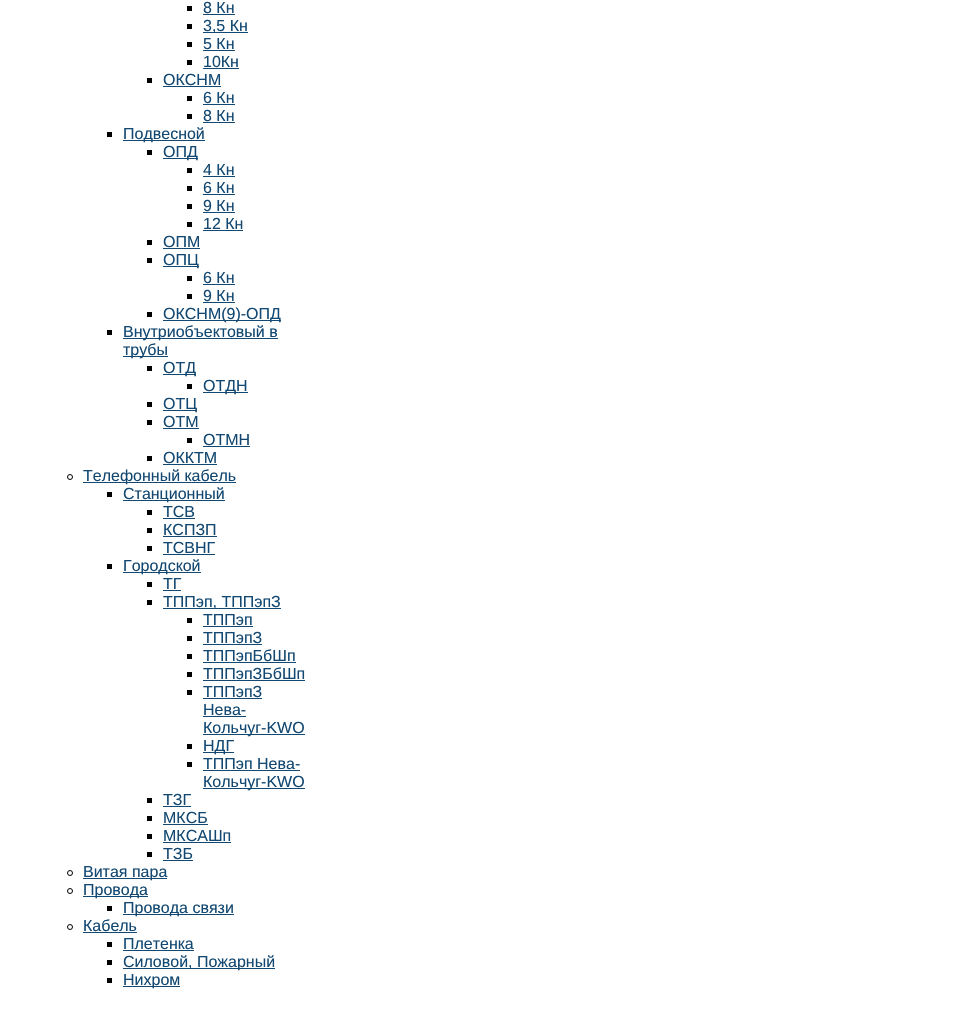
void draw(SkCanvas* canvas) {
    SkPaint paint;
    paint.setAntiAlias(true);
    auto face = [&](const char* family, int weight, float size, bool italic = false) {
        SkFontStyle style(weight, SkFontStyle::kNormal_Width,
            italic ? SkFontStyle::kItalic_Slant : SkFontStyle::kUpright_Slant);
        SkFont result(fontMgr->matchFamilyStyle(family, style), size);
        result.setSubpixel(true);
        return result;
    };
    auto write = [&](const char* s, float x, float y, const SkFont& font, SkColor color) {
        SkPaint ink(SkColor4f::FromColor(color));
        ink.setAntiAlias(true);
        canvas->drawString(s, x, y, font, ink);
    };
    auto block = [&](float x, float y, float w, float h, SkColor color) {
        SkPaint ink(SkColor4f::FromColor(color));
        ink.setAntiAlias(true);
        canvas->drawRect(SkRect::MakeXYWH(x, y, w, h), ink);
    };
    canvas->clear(SK_ColorWHITE);
    block(187, 6, 5, 5, SK_ColorBLACK);
    auto kFont1 = face("Liberation Sans", 400, 16);
    write("8 Кн", 203, 13, kFont1, SkColorSetRGB(18, 72, 113));
    block(203, 14, 32, 1, SkColorSetRGB(18, 72, 113));
    block(187, 24, 5, 5, SK_ColorBLACK);
    block(203, 32, 45, 1, SkColorSetRGB(18, 72, 113));
    write("3,5 Кн", 203, 31, kFont1, SkColorSetRGB(18, 72, 113));
    block(187, 42, 5, 5, SK_ColorBLACK);
    write("5 Кн", 203, 49, kFont1, SkColorSetRGB(18, 72, 113));
    block(203, 50, 32, 1, SkColorSetRGB(18, 72, 113));
    block(187, 60, 5, 5, SK_ColorBLACK);
    write("10Кн", 203, 67, kFont1, SkColorSetRGB(18, 72, 113));
    block(203, 68, 36, 1, SkColorSetRGB(18, 72, 113));
    block(147, 78, 5, 5, SK_ColorBLACK);
    write("ОКСНМ", 163, 85, kFont1, SkColorSetRGB(18, 72, 113));
    block(163, 86, 58, 1, SkColorSetRGB(18, 72, 113));
    block(187, 96, 5, 5, SK_ColorBLACK);
    write("6 Кн", 203, 103, kFont1, SkColorSetRGB(18, 72, 113));
    block(203, 104, 32, 1, SkColorSetRGB(18, 72, 113));
    block(187, 114, 5, 5, SK_ColorBLACK);
    write("8 Кн", 203, 121, kFont1, SkColorSetRGB(18, 72, 113));
    block(203, 122, 32, 1, SkColorSetRGB(18, 72, 113));
    block(107, 132, 5, 5, SK_ColorBLACK);
    block(123, 140, 82, 1, SkColorSetRGB(18, 72, 113));
    write("Подвесной", 123, 139, kFont1, SkColorSetRGB(18, 72, 113));
    block(147, 150, 5, 5, SK_ColorBLACK);
    block(163, 158, 35, 1, SkColorSetRGB(18, 72, 113));
    write("ОПД", 163, 157, kFont1, SkColorSetRGB(18, 72, 113));
    block(187, 168, 5, 5, SK_ColorBLACK);
    write("4 Кн", 203, 175, kFont1, SkColorSetRGB(18, 72, 113));
    block(203, 176, 32, 1, SkColorSetRGB(18, 72, 113));
    block(187, 186, 5, 5, SK_ColorBLACK);
    write("6 Кн", 203, 193, kFont1, SkColorSetRGB(18, 72, 113));
    block(203, 194, 32, 1, SkColorSetRGB(18, 72, 113));
    block(187, 204, 5, 5, SK_ColorBLACK);
    write("9 Кн", 203, 211, kFont1, SkColorSetRGB(18, 72, 113));
    block(203, 212, 32, 1, SkColorSetRGB(18, 72, 113));
    block(187, 222, 5, 5, SK_ColorBLACK);
    write("12 Кн", 203, 229, kFont1, SkColorSetRGB(18, 72, 113));
    block(203, 230, 40, 1, SkColorSetRGB(18, 72, 113));
    block(147, 240, 5, 5, SK_ColorBLACK);
    write("ОПМ", 163, 247, kFont1, SkColorSetRGB(18, 72, 113));
    block(163, 248, 37, 1, SkColorSetRGB(18, 72, 113));
    block(147, 258, 5, 5, SK_ColorBLACK);
    block(163, 266, 36, 1, SkColorSetRGB(18, 72, 113));
    write("ОПЦ", 163, 265, kFont1, SkColorSetRGB(18, 72, 113));
    block(187, 276, 5, 5, SK_ColorBLACK);
    write("6 Кн", 203, 283, kFont1, SkColorSetRGB(18, 72, 113));
    block(203, 284, 32, 1, SkColorSetRGB(18, 72, 113));
    block(187, 294, 5, 5, SK_ColorBLACK);
    write("9 Кн", 203, 301, kFont1, SkColorSetRGB(18, 72, 113));
    block(203, 302, 32, 1, SkColorSetRGB(18, 72, 113));
    block(147, 312, 5, 5, SK_ColorBLACK);
    block(163, 320, 118, 1, SkColorSetRGB(18, 72, 113));
    write("ОКСНМ(9)-ОПД", 163, 319, kFont1, SkColorSetRGB(18, 72, 113));
    block(107, 330, 5, 5, SK_ColorBLACK);
    block(123, 338, 155, 1, SkColorSetRGB(18, 72, 113));
    write("Внутриобъектовый в", 123, 337, kFont1, SkColorSetRGB(18, 72, 113));
    block(123, 356, 45, 1, SkColorSetRGB(18, 72, 113));
    write("трубы", 123, 355, kFont1, SkColorSetRGB(18, 72, 113));
    block(147, 366, 5, 5, SK_ColorBLACK);
    block(163, 374, 33, 1, SkColorSetRGB(18, 72, 113));
    write("ОТД", 163, 373, kFont1, SkColorSetRGB(18, 72, 113));
    block(187, 384, 5, 5, SK_ColorBLACK);
    block(203, 392, 45, 1, SkColorSetRGB(18, 72, 113));
    write("ОТДН", 203, 391, kFont1, SkColorSetRGB(18, 72, 113));
    block(147, 402, 5, 5, SK_ColorBLACK);
    block(163, 410, 34, 1, SkColorSetRGB(18, 72, 113));
    write("ОТЦ", 163, 409, kFont1, SkColorSetRGB(18, 72, 113));
    block(147, 420, 5, 5, SK_ColorBLACK);
    write("ОТМ", 163, 427, kFont1, SkColorSetRGB(18, 72, 113));
    block(163, 428, 36, 1, SkColorSetRGB(18, 72, 113));
    block(187, 438, 5, 5, SK_ColorBLACK);
    write("ОТМН", 203, 445, kFont1, SkColorSetRGB(18, 72, 113));
    block(203, 446, 47, 1, SkColorSetRGB(18, 72, 113));
    block(147, 456, 5, 5, SK_ColorBLACK);
    write("ОККТМ", 163, 463, kFont1, SkColorSetRGB(18, 72, 113));
    block(163, 464, 54, 1, SkColorSetRGB(18, 72, 113));
    paint.setStyle(SkPaint::kStroke_Style);
    paint.setStrokeWidth(1);
    paint.setColor(SK_ColorBLACK);
    canvas->drawCircle(70, 477, 2.5f, paint);
    block(83, 482, 153, 1, SkColorSetRGB(18, 72, 113));
    write("Телефонный кабель", 83, 481, kFont1, SkColorSetRGB(18, 72, 113));
    block(107, 492, 5, 5, SK_ColorBLACK);
    block(123, 500, 102, 1, SkColorSetRGB(18, 72, 113));
    write("Станционный", 123, 499, kFont1, SkColorSetRGB(18, 72, 113));
    block(147, 510, 5, 5, SK_ColorBLACK);
    write("ТСВ", 163, 517, kFont1, SkColorSetRGB(18, 72, 113));
    block(163, 518, 32, 1, SkColorSetRGB(18, 72, 113));
    block(147, 528, 5, 5, SK_ColorBLACK);
    write("КСПЗП", 163, 535, kFont1, SkColorSetRGB(18, 72, 113));
    block(163, 536, 54, 1, SkColorSetRGB(18, 72, 113));
    block(147, 546, 5, 5, SK_ColorBLACK);
    write("ТСВНГ", 163, 553, kFont1, SkColorSetRGB(18, 72, 113));
    block(163, 554, 52, 1, SkColorSetRGB(18, 72, 113));
    block(107, 564, 5, 5, SK_ColorBLACK);
    block(123, 572, 78, 1, SkColorSetRGB(18, 72, 113));
    write("Городской", 123, 571, kFont1, SkColorSetRGB(18, 72, 113));
    block(147, 582, 5, 5, SK_ColorBLACK);
    write("ТГ", 163, 589, kFont1, SkColorSetRGB(18, 72, 113));
    block(163, 590, 18, 1, SkColorSetRGB(18, 72, 113));
    block(147, 600, 5, 5, SK_ColorBLACK);
    block(163, 608, 118, 1, SkColorSetRGB(18, 72, 113));
    write("ТППэп, ТППэпЗ", 163, 607, kFont1, SkColorSetRGB(18, 72, 113));
    block(187, 618, 5, 5, SK_ColorBLACK);
    write("ТППэп", 203, 625, kFont1, SkColorSetRGB(18, 72, 113));
    block(203, 626, 50, 1, SkColorSetRGB(18, 72, 113));
    block(187, 636, 5, 5, SK_ColorBLACK);
    write("ТППэпЗ", 203, 643, kFont1, SkColorSetRGB(18, 72, 113));
    block(203, 644, 59, 1, SkColorSetRGB(18, 72, 113));
    block(187, 654, 5, 5, SK_ColorBLACK);
    write("ТППэпБбШп", 203, 661, kFont1, SkColorSetRGB(18, 72, 113));
    block(203, 662, 93, 1, SkColorSetRGB(18, 72, 113));
    block(187, 672, 5, 5, SK_ColorBLACK);
    write("ТППэпЗБбШп", 203, 679, kFont1, SkColorSetRGB(18, 72, 113));
    block(203, 680, 102, 1, SkColorSetRGB(18, 72, 113));
    block(187, 690, 5, 5, SK_ColorBLACK);
    write("ТППэпЗ", 203, 697, kFont1, SkColorSetRGB(18, 72, 113));
    block(203, 698, 59, 1, SkColorSetRGB(18, 72, 113));
    write("Нева-", 203, 715, kFont1, SkColorSetRGB(18, 72, 113));
    block(203, 716, 43, 1, SkColorSetRGB(18, 72, 113));
    block(203, 734, 102, 1, SkColorSetRGB(18, 72, 113));
    write("Кольчуг-KWO", 203, 733, kFont1, SkColorSetRGB(18, 72, 113));
    block(187, 744, 5, 5, SK_ColorBLACK);
    block(203, 752, 31, 1, SkColorSetRGB(18, 72, 113));
    write("НДГ", 203, 751, kFont1, SkColorSetRGB(18, 72, 113));
    block(187, 762, 5, 5, SK_ColorBLACK);
    write("ТППэп Нева-", 203, 769, kFont1, SkColorSetRGB(18, 72, 113));
    block(203, 770, 97, 1, SkColorSetRGB(18, 72, 113));
    block(203, 788, 102, 1, SkColorSetRGB(18, 72, 113));
    write("Кольчуг-KWO", 203, 787, kFont1, SkColorSetRGB(18, 72, 113));
    block(147, 798, 5, 5, SK_ColorBLACK);
    write("ТЗГ", 163, 805, kFont1, SkColorSetRGB(18, 72, 113));
    block(163, 806, 28, 1, SkColorSetRGB(18, 72, 113));
    block(147, 816, 5, 5, SK_ColorBLACK);
    write("МКСБ", 163, 823, kFont1, SkColorSetRGB(18, 72, 113));
    block(163, 824, 45, 1, SkColorSetRGB(18, 72, 113));
    block(147, 834, 5, 5, SK_ColorBLACK);
    write("МКСАШп", 163, 841, kFont1, SkColorSetRGB(18, 72, 113));
    block(163, 842, 68, 1, SkColorSetRGB(18, 72, 113));
    block(147, 852, 5, 5, SK_ColorBLACK);
    write("ТЗБ", 163, 859, kFont1, SkColorSetRGB(18, 72, 113));
    block(163, 860, 30, 1, SkColorSetRGB(18, 72, 113));
    canvas->drawCircle(70, 873, 2.5f, paint);
    block(83, 878, 84, 1, SkColorSetRGB(18, 72, 113));
    write("Витая пара", 83, 877, kFont1, SkColorSetRGB(18, 72, 113));
    canvas->drawCircle(70, 891, 2.5f, paint);
    block(83, 896, 65, 1, SkColorSetRGB(18, 72, 113));
    write("Провода", 83, 895, kFont1, SkColorSetRGB(18, 72, 113));
    block(107, 906, 5, 5, SK_ColorBLACK);
    block(123, 914, 111, 1, SkColorSetRGB(18, 72, 113));
    write("Провода связи", 123, 913, kFont1, SkColorSetRGB(18, 72, 113));
    canvas->drawCircle(70, 927, 2.5f, paint);
    write("Кабель", 83, 931, kFont1, SkColorSetRGB(18, 72, 113));
    block(83, 932, 54, 1, SkColorSetRGB(18, 72, 113));
    block(107, 942, 5, 5, SK_ColorBLACK);
    write("Плетенка", 123, 949, kFont1, SkColorSetRGB(18, 72, 113));
    block(123, 950, 71, 1, SkColorSetRGB(18, 72, 113));
    block(107, 960, 5, 5, SK_ColorBLACK);
    block(123, 968, 152, 1, SkColorSetRGB(18, 72, 113));
    write("Силовой, Пожарный", 123, 967, kFont1, SkColorSetRGB(18, 72, 113));
    block(107, 978, 5, 5, SK_ColorBLACK);
    block(123, 986, 57, 1, SkColorSetRGB(18, 72, 113));
    write("Нихром", 123, 985, kFont1, SkColorSetRGB(18, 72, 113));
}
